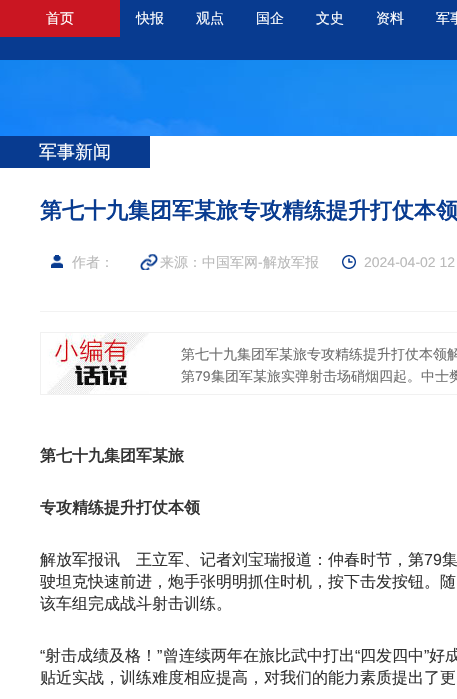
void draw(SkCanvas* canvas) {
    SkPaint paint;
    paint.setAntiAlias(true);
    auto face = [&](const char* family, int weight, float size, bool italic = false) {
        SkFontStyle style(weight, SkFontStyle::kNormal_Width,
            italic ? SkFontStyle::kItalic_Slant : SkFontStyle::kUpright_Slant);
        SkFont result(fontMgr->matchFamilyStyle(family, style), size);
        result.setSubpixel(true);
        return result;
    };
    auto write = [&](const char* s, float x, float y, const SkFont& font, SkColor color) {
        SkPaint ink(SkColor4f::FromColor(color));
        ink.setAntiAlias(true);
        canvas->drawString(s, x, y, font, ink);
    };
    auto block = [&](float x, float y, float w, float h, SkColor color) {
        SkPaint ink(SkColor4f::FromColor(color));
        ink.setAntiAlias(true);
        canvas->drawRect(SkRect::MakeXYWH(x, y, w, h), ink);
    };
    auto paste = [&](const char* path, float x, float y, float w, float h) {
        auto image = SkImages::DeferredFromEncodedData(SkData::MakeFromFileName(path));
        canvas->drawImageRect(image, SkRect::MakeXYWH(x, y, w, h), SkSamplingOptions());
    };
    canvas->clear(SK_ColorWHITE);
    paste("pic1.png", 0, 60, 457, 76);
    block(0, 0, 457, 60, SkColorSetRGB(8, 59, 144));
    block(0, 0, 120, 37, SkColorSetRGB(202, 22, 34));
    auto kFont1 = face("WenQuanYi Zen Hei", 500, 14);
    write("首页", 46, 23, kFont1, SK_ColorWHITE);
    write("快报", 136, 23, kFont1, SK_ColorWHITE);
    write("观点", 196, 23, kFont1, SK_ColorWHITE);
    write("国企", 256, 23, kFont1, SK_ColorWHITE);
    write("文史", 316, 23, kFont1, SK_ColorWHITE);
    write("资料", 376, 23, kFont1, SK_ColorWHITE);
    write("军事", 436, 23, kFont1, SK_ColorWHITE);
    block(0, 136, 150, 32, SkColorSetRGB(8, 59, 144));
    auto kFont2 = face("WenQuanYi Zen Hei", 500, 18);
    write("军事新闻", 39, 158, kFont2, SK_ColorWHITE);
    auto kFont3 = face("WenQuanYi Zen Hei", 700, 22);
    write("第七十九集团军某旅专攻精练提升打仗本领", 40, 218, kFont3, SkColorSetRGB(8, 59, 144));
    block(40, 311, 417, 1, SkColorSetRGB(242, 242, 242));
    paste("pic2.png", 51, 255, 12, 13);
    write("作者：", 72, 267, kFont1, SkColorSetRGB(185, 185, 185));
    paste("pic3.png", 140, 254, 18, 16);
    write("来源：中国军网", 160, 267, kFont1, SkColorSetRGB(185, 185, 185));
    auto kFont4 = face("Liberation Sans", 400, 14);
    write("-", 258, 267, kFont4, SkColorSetRGB(185, 185, 185));
    write("解放军报", 263, 267, kFont1, SkColorSetRGB(185, 185, 185));
    paste("pic4.png", 342, 255, 14, 14);
    write("2024-04-02 12", 364, 267, kFont4, SkColorSetRGB(185, 185, 185));
    paste("pic5.png", 47, 333, 102, 61);
    paint.setStyle(SkPaint::kStroke_Style);
    paint.setStrokeWidth(1);
    paint.setColor(SkColorSetRGB(241, 241, 241));
    canvas->drawRect(SkRect::MakeXYWH(40.5f, 332.5f, 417, 62), paint);
    write("第七十九集团军某旅专攻精练提升打仗本领解", 181, 359, kFont1, SkColorSetRGB(110, 110, 110));
    write("第", 181, 381, kFont1, SkColorSetRGB(110, 110, 110));
    write("79", 195, 381, kFont4, SkColorSetRGB(110, 110, 110));
    write("集团军某旅实弹射击场硝烟四起。中士樊", 211, 381, kFont1, SkColorSetRGB(110, 110, 110));
    auto kFont5 = face("WenQuanYi Zen Hei", 700, 16);
    write("第七十九集团军某旅", 40, 461, kFont5, SkColorSetRGB(51, 51, 51));
    write("专攻精练提升打仗本领", 40, 513, kFont5, SkColorSetRGB(51, 51, 51));
    auto kFont6 = face("WenQuanYi Zen Hei", 500, 16);
    write("解放军报讯　王立军、记者刘宝瑞报道：仲春时节，第", 40, 565, kFont6, SkColorSetRGB(51, 51, 51));
    auto kFont7 = face("Liberation Sans", 400, 16);
    write("79", 424, 565, kFont7, SkColorSetRGB(51, 51, 51));
    write("集", 442, 565, kFont6, SkColorSetRGB(51, 51, 51));
    write("驶坦克快速前进，炮手张明明抓住时机，按下击发按钮。随", 40, 587, kFont6, SkColorSetRGB(51, 51, 51));
    write("该车组完成战斗射击训练。", 40, 609, kFont6, SkColorSetRGB(51, 51, 51));
    write("“", 40, 661, kFont7, SkColorSetRGB(51, 51, 51));
    write("射击成绩及格！", 45, 661, kFont6, SkColorSetRGB(51, 51, 51));
    write("”", 157, 661, kFont7, SkColorSetRGB(51, 51, 51));
    write("曾连续两年在旅比武中打出", 163, 661, kFont6, SkColorSetRGB(51, 51, 51));
    write("“", 355, 661, kFont7, SkColorSetRGB(51, 51, 51));
    write("四发四中", 360, 661, kFont6, SkColorSetRGB(51, 51, 51));
    write("”", 424, 661, kFont7, SkColorSetRGB(51, 51, 51));
    write("好成", 429, 661, kFont6, SkColorSetRGB(51, 51, 51));
    write("贴近实战，训练难度相应提高，对我们的能力素质提出了更", 40, 683, kFont6, SkColorSetRGB(51, 51, 51));
}
